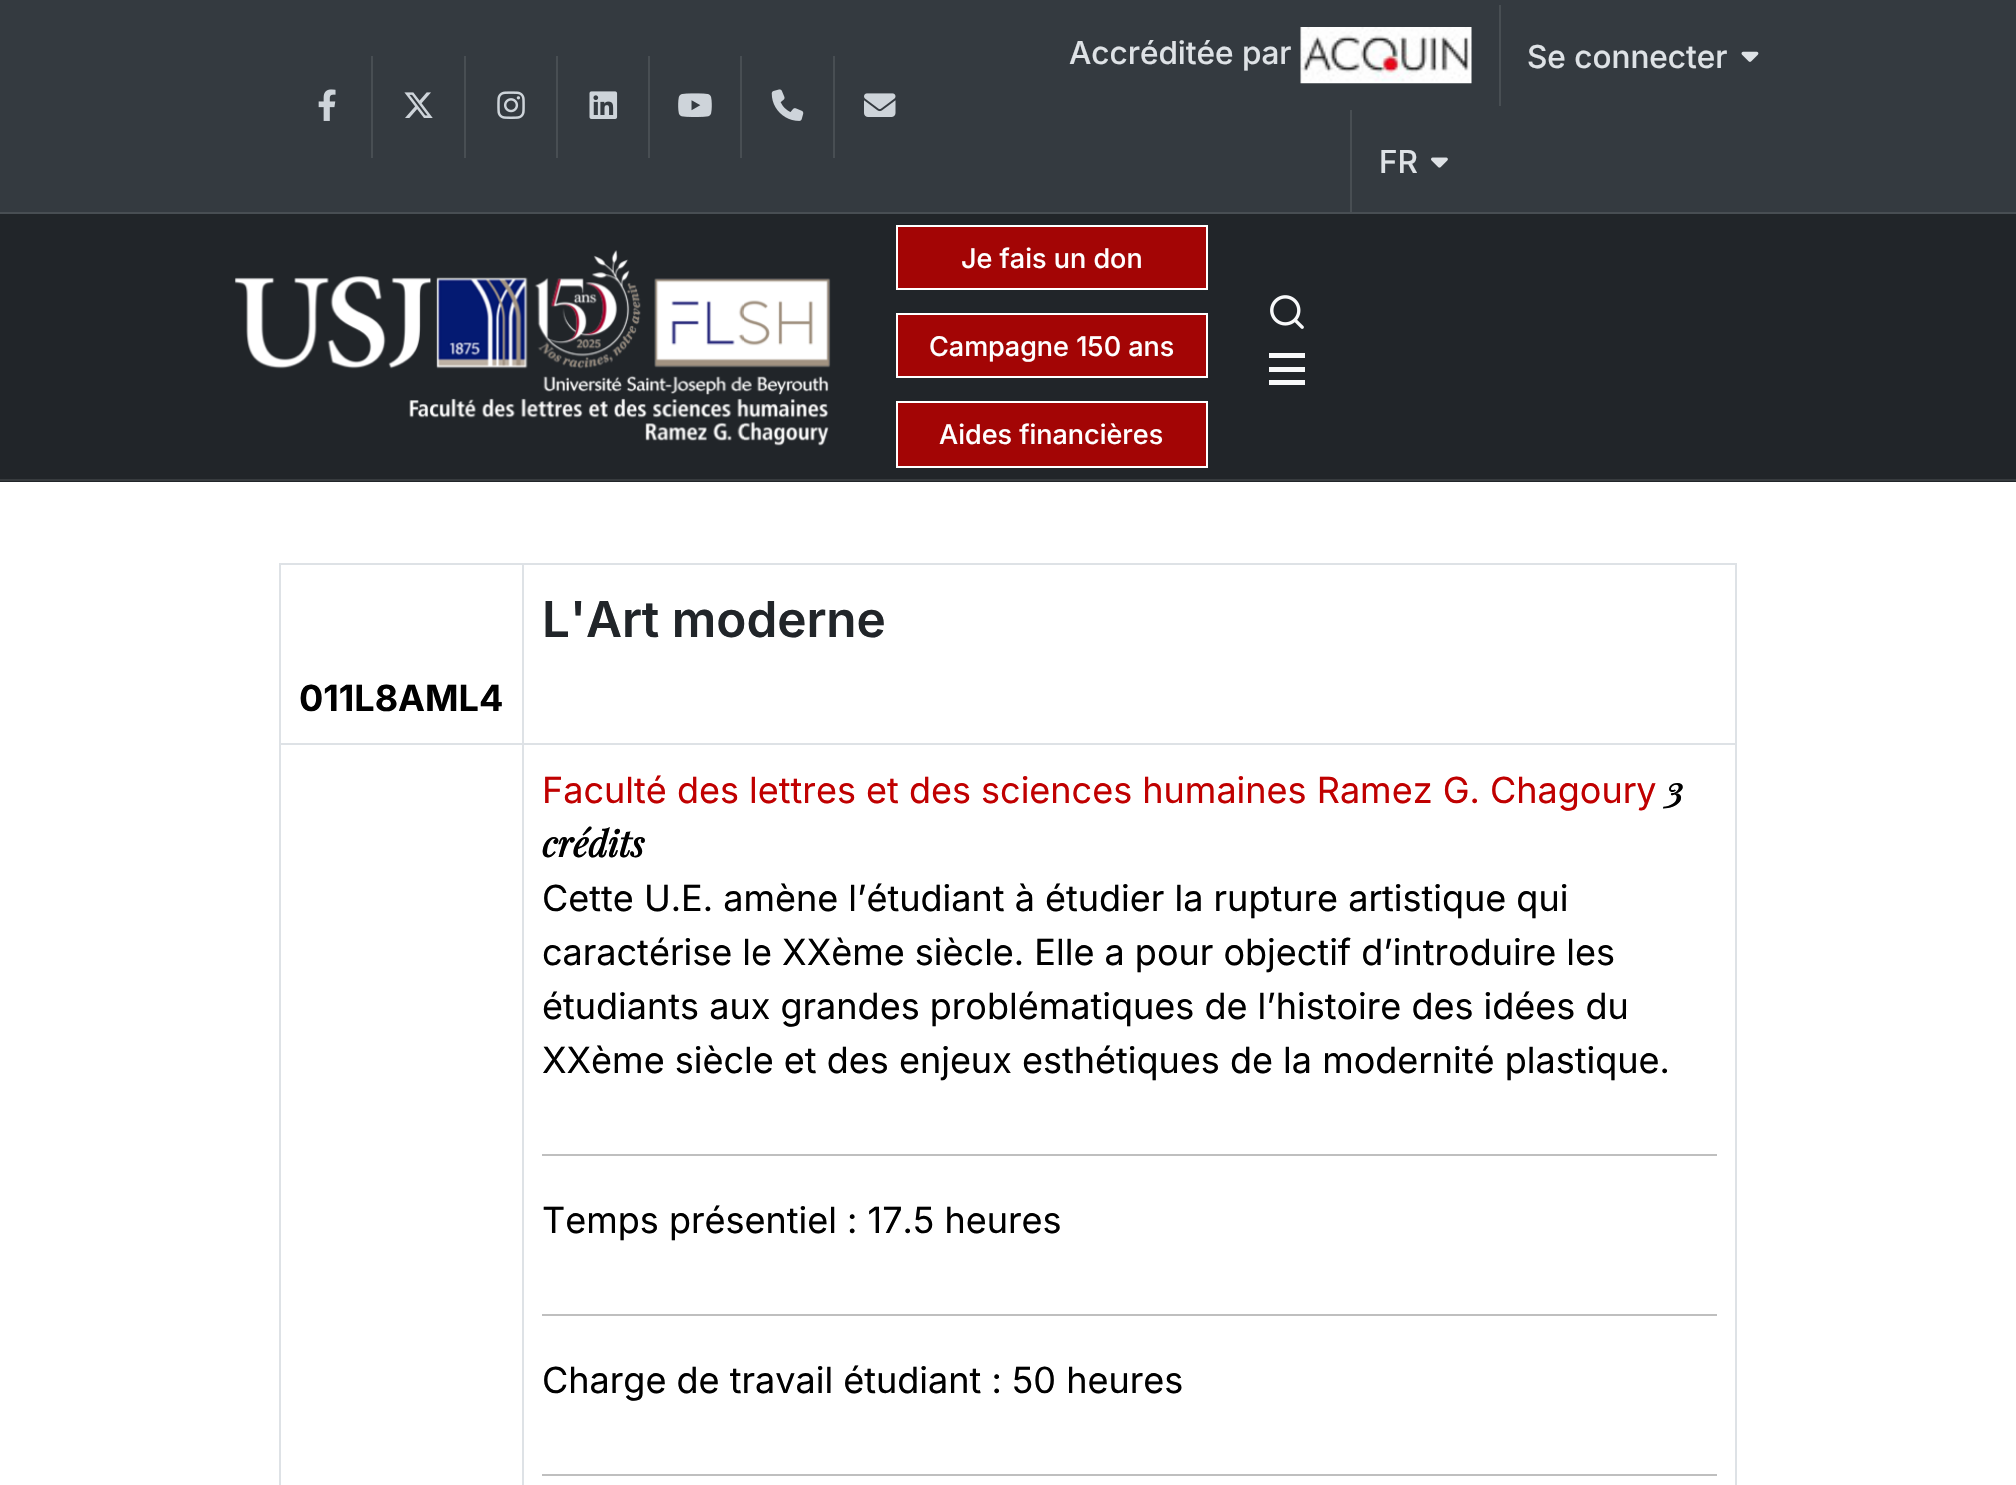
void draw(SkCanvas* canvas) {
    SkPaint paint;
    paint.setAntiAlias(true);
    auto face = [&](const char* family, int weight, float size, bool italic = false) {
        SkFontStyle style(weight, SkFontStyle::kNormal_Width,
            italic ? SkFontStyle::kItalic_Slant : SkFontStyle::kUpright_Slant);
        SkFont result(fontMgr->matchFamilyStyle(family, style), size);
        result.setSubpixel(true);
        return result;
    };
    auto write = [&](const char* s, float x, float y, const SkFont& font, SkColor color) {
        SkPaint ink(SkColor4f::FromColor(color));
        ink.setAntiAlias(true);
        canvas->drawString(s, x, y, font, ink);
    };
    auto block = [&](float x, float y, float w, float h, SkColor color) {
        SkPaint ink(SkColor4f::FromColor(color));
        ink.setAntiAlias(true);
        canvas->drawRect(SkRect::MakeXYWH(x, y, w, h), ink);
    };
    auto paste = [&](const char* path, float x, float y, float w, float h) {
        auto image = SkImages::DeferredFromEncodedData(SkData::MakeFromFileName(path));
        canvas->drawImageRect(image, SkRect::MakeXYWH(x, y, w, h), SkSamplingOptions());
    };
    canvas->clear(SK_ColorWHITE);
    block(0, 0, 2016, 212, SkColorSetRGB(52, 58, 64));
    block(0, 212, 2016, 2, SkColorSetRGB(72, 78, 83));
    paste("pic1.png", 318, 89, 18, 32);
    block(371, 56, 2, 102, SkColorSetRGB(72, 78, 83));
    paste("pic2.png", 404, 92, 29, 26);
    block(464, 56, 2, 102, SkColorSetRGB(72, 78, 83));
    paste("pic3.png", 497, 91, 28, 28);
    block(556, 56, 2, 102, SkColorSetRGB(72, 78, 83));
    paste("pic4.png", 589, 91, 29, 28);
    block(648, 56, 2, 102, SkColorSetRGB(72, 78, 83));
    paste("pic5.png", 678, 93, 34, 24);
    block(740, 56, 2, 102, SkColorSetRGB(72, 78, 83));
    paste("pic6.png", 771, 89, 33, 32);
    block(833, 56, 2, 102, SkColorSetRGB(72, 78, 83));
    paste("pic7.png", 864, 93, 32, 24);
    auto kFont1 = face("Inter", 500, 31.5f);
    write("Accréditée par", 1069, 64, kFont1, SkColorSetRGB(222, 226, 230));
    paste("pic8.png", 1300, 27, 172, 57);
    block(1499, 5, 2, 101, SkColorSetRGB(72, 78, 83));
    write("Se connecter", 1527, 68, kFont1, SkColorSetRGB(222, 226, 230));
    paste("pic9.png", 1741, 51, 18, 11);
    block(1350, 110, 2, 102, SkColorSetRGB(72, 78, 83));
    write("FR", 1379, 173, kFont1, SkColorSetRGB(222, 226, 230));
    paste("pic10.png", 1431, 157, 17, 11);
    block(0, 214, 2016, 268, SkColorSetRGB(33, 37, 41));
    block(0, 479, 2016, 2, SkColorSetRGB(55, 59, 62));
    paste("pic11.png", 234, 250, 597, 196);
    paint.setColor(SkColorSetRGB(163, 5, 5));
    canvas->drawRect(SkRect::MakeXYWH(897, 226, 310, 63), paint);
    paint.setStyle(SkPaint::kStroke_Style);
    paint.setStrokeWidth(2);
    paint.setColor(SK_ColorWHITE);
    canvas->drawRect(SkRect::MakeXYWH(897, 226, 310, 63), paint);
    auto kFont2 = face("Inter", 500, 27);
    write("Je fais un don", 961, 268, kFont2, SK_ColorWHITE);
    paint.setStyle(SkPaint::kFill_Style);
    paint.setColor(SkColorSetRGB(163, 5, 5));
    canvas->drawRect(SkRect::MakeXYWH(897, 314, 310, 63), paint);
    paint.setStyle(SkPaint::kStroke_Style);
    paint.setColor(SK_ColorWHITE);
    canvas->drawRect(SkRect::MakeXYWH(897, 314, 310, 63), paint);
    write("Campagne 150 ans", 929, 356, kFont2, SK_ColorWHITE);
    paint.setStyle(SkPaint::kFill_Style);
    paint.setColor(SkColorSetRGB(163, 5, 5));
    canvas->drawRect(SkRect::MakeXYWH(897, 402, 310, 65), paint);
    paint.setStyle(SkPaint::kStroke_Style);
    paint.setColor(SK_ColorWHITE);
    canvas->drawRect(SkRect::MakeXYWH(897, 402, 310, 65), paint);
    write("Aides financières", 939, 444, kFont2, SK_ColorWHITE);
    paste("pic12.png", 1270, 295, 34, 34);
    block(1269, 367, 36, 5, SkColorSetRGB(248, 249, 250));
    block(1269, 353, 36, 5, SkColorSetRGB(248, 249, 250));
    block(1269, 380, 36, 5, SkColorSetRGB(248, 249, 250));
    block(279, 563, 1458, 2, SkColorSetRGB(222, 226, 230));
    auto kFont3 = face("Inter", 600, 49.5f);
    write("L'Art moderne", 542, 637, kFont3, SkColorSetRGB(33, 37, 41));
    auto kFont4 = face("Inter", 700, 36);
    write("011L8AML4", 299, 711, kFont4, SK_ColorBLACK);
    block(279, 743, 1458, 2, SkColorSetRGB(222, 226, 230));
    block(279, 563, 2, 922, SkColorSetRGB(222, 226, 230));
    block(1735, 563, 2, 922, SkColorSetRGB(222, 226, 230));
    block(522, 563, 2, 922, SkColorSetRGB(222, 226, 230));
    auto kFont5 = face("Inter", 400, 36);
    write("Faculté des lettres et des sciences humaines Ramez G. Chagoury", 542, 803, kFont5, SkColorSetRGB(192, 0, 0));
    auto kFont6 = face("Playfair Display", 700, 36, true);
    write("3", 1666, 803, kFont6, SK_ColorBLACK);
    write("crédits", 542, 857, kFont6, SK_ColorBLACK);
    write("Cette U.E. amène l’étudiant à étudier la rupture artistique qui", 542, 911, kFont5, SK_ColorBLACK);
    write("caractérise le XXème siècle. Elle a pour objectif d’introduire les", 542, 965, kFont5, SK_ColorBLACK);
    write("étudiants aux grandes problématiques de l’histoire des idées du", 542, 1019, kFont5, SK_ColorBLACK);
    write("XXème siècle et des enjeux esthétiques de la modernité plastique.", 542, 1073, kFont5, SK_ColorBLACK);
    block(542, 1154, 1175, 2, SkColorSetRGB(191, 191, 191));
    write("Temps présentiel : 17.5 heures", 542, 1233, kFont5, SK_ColorBLACK);
    block(542, 1314, 1175, 2, SkColorSetRGB(191, 191, 191));
    write("Charge de travail étudiant : 50 heures", 542, 1393, kFont5, SK_ColorBLACK);
    block(542, 1474, 1175, 2, SkColorSetRGB(191, 191, 191));
}
